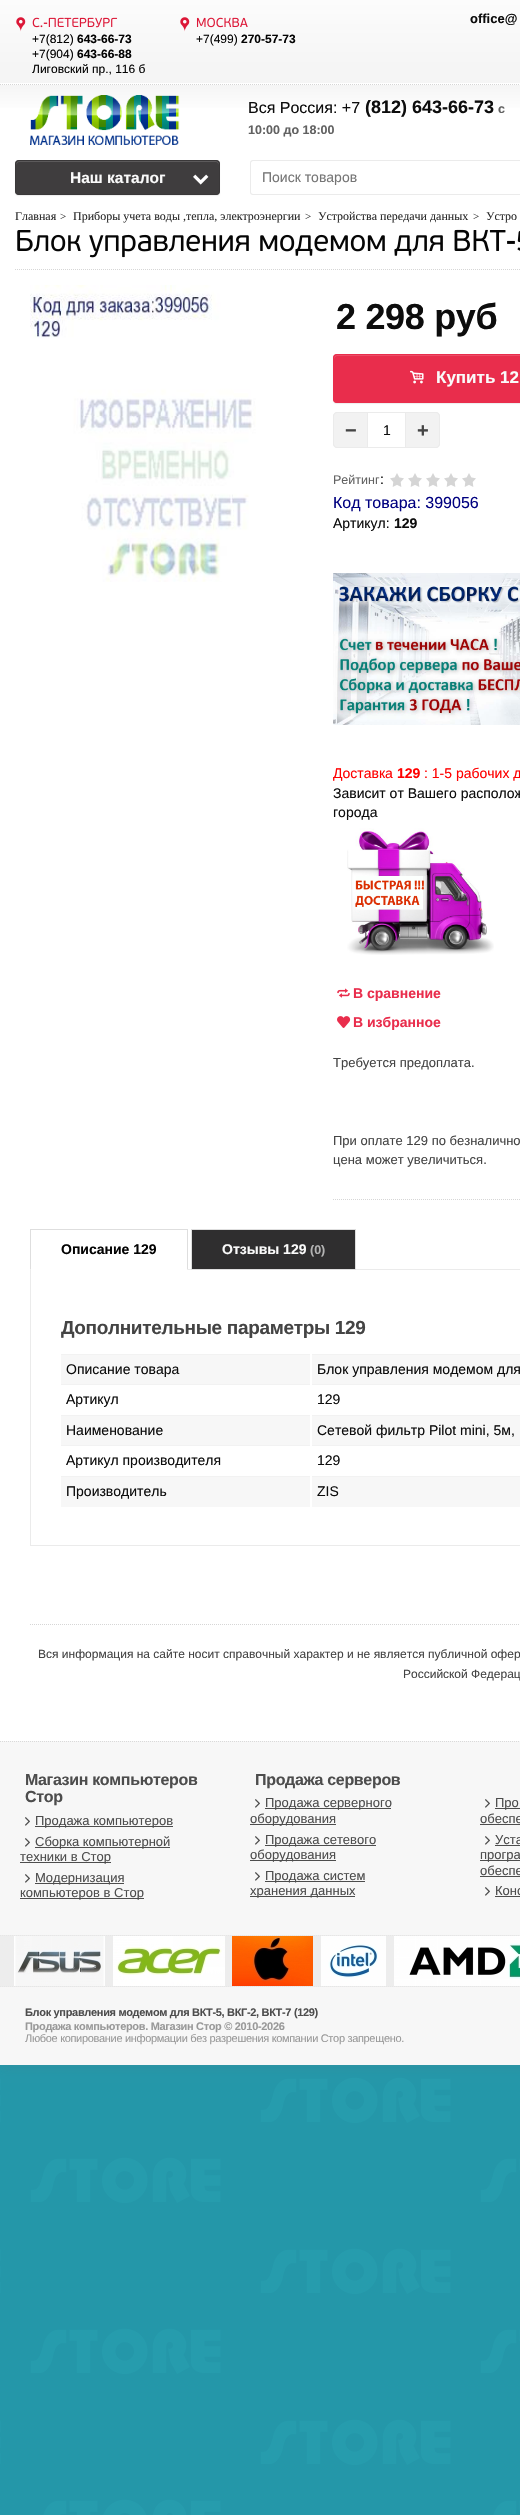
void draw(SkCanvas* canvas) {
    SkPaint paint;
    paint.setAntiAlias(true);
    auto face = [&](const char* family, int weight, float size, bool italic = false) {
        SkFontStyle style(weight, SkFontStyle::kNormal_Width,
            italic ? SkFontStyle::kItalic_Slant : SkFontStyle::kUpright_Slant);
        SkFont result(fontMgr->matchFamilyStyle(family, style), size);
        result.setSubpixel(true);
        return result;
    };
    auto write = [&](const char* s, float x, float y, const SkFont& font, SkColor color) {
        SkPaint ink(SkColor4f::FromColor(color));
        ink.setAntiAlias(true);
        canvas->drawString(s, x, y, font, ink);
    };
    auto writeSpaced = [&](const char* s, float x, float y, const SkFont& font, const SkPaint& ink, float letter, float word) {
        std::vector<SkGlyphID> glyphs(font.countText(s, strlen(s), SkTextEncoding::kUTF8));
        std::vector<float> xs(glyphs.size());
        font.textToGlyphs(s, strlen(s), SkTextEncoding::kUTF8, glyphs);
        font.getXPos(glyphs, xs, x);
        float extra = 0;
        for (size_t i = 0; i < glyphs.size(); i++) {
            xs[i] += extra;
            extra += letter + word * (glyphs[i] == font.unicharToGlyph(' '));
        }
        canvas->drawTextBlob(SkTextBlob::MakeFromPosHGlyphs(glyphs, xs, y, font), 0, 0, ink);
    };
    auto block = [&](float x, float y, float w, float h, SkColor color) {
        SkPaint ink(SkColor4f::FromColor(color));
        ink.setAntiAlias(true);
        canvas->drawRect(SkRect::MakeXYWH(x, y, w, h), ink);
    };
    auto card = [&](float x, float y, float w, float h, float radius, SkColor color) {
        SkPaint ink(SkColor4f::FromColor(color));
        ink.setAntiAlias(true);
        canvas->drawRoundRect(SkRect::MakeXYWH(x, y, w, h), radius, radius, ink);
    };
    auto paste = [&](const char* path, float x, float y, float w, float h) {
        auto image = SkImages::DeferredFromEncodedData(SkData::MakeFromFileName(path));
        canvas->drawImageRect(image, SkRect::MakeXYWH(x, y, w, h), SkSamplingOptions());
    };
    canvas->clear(SK_ColorWHITE);
    paste("pic1.png", 0, 2065, 520, 450);
    paint.setColor(SkColorSetARGB(38, 99, 103, 108));
    paint.setMaskFilter(SkMaskFilter::MakeBlur(kNormal_SkBlurStyle, 5.5f));
    canvas->drawRect(SkRect::MakeXYWH(0, 2, 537, 2065), paint);
    paint.setMaskFilter(nullptr);
    block(0, 83, 520, 1658, SK_ColorWHITE);
    {
        const SkColor colors[] = {SkColorSetRGB(252, 252, 252), SkColorSetRGB(245, 245, 245)};
        const float stops[] = {0, 0.8f};
        const SkPoint ends[] = {{470, 0}, {470, 83}};
        paint.setShader(SkGradientShader::MakeLinear(ends, colors, stops, 2, SkTileMode::kClamp));
        paint.setAlpha(255);
    }
    canvas->drawRect(SkRect::MakeXYWH(0, 0, 520, 83), paint);
    auto kFont1 = face("Liberation Sans", 700, 13);
    write("office@", 470, 23, kFont1, SkColorSetRGB(13, 13, 13));
    paste("pic2.png", 16, 17, 10, 15);
    paste("pic3.png", 32, 17, 86, 11);
    auto kFont2 = face("Liberation Sans", 400, 12);
    write("+7(812)", 32, 43, kFont2, SkColorSetRGB(3, 3, 3));
    auto kFont3 = face("Liberation Sans", 700, 12);
    write("643-66-73", 77, 43, kFont3, SkColorSetRGB(3, 3, 3));
    write("+7(904)", 32, 58, kFont2, SkColorSetRGB(3, 3, 3));
    write("643-66-88", 77, 58, kFont3, SkColorSetRGB(3, 3, 3));
    write("Лиговский пр., 116 б", 32, 73, kFont2, SkColorSetRGB(3, 3, 3));
    paste("pic2.png", 180, 17, 10, 15);
    paste("pic4.png", 196, 17, 52, 11);
    write("+7(499)", 196, 43, kFont2, SkColorSetRGB(3, 3, 3));
    write("270-57-73", 241, 43, kFont3, SkColorSetRGB(3, 3, 3));
    {
        const SkColor colors[] = {SkColorSetRGB(245, 245, 245), SK_ColorWHITE};
        const float stops[] = {0, 0.4f};
        const SkPoint ends[] = {{470, 85}, {470, 160}};
        paint.setShader(SkGradientShader::MakeLinear(ends, colors, stops, 2, SkTileMode::kClamp));
        paint.setAlpha(255);
    }
    canvas->drawRect(SkRect::MakeXYWH(0, 85, 520, 23), paint);
    paint.setStyle(SkPaint::kStroke_Style);
    paint.setStrokeWidth(1);
    paint.setShader(nullptr);
    paint.setColor(SkColorSetRGB(214, 214, 214));
    paint.setPathEffect(SkDashPathEffect::Make({{1, 1}}, 0));
    canvas->drawPath(SkPathBuilder().moveTo(0, 84.5f).lineTo(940, 84.5f).detach(), paint);
    paint.setPathEffect(nullptr);
    paste("pic5.png", 30, 95, 150, 50);
    auto kFont4 = face("Liberation Sans", 400, 16);
    write("Вся Россия: +7", 248, 113, kFont4, SkColorSetRGB(13, 13, 13));
    auto kFont5 = face("Liberation Sans", 700, 18);
    write("(812) 643-66-73", 365, 113, kFont5, SkColorSetRGB(13, 13, 13));
    auto kFont6 = face("Liberation Sans", 700, 12.5f);
    write("с", 498, 113, kFont6, SkColorSetRGB(97, 97, 97));
    write("10:00 до 18:00", 248, 134, kFont6, SkColorSetRGB(97, 97, 97));
    paint.setStyle(SkPaint::kFill_Style);
    paint.setColor(SkColorSetARGB(18, 0, 0, 0));
    paint.setMaskFilter(SkMaskFilter::MakeBlur(kNormal_SkBlurStyle, 0.5f));
    canvas->drawRoundRect(SkRect::MakeXYWH(15, 161, 205, 35), 4, 4, paint);
    paint.setMaskFilter(nullptr);
    card(15, 160, 205, 35, 4, SkColorSetRGB(63, 61, 62));
    paint.setColor(SkColorSetRGB(92, 90, 91));
    canvas->drawPath(SkPathBuilder().moveTo(19, 162).lineTo(216, 162).cubicTo(217, 162, 219, 164, 219, 165).cubicTo(219, 163, 218, 161, 216, 161).lineTo(19, 161).cubicTo(17, 161, 16, 163, 16, 165).cubicTo(16, 164, 18, 162, 19, 162).close().detach(), paint);
    paint.setStyle(SkPaint::kStroke_Style);
    paint.setColor(SkColorSetRGB(58, 56, 57));
    canvas->drawRoundRect(SkRect::MakeXYWH(15.5f, 160.5f, 204, 34), 3.5f, 3.5f, paint);
    auto kFont7 = face("Liberation Sans", 700, 15.5f);
    write("Наш каталог", 70, 183, kFont7, SkColorSetRGB(250, 250, 250));
    paste("pic6.png", 193, 174, 16, 11);
    paint.setStyle(SkPaint::kFill_Style);
    paint.setColor(SkColorSetRGB(235, 235, 235));
    canvas->drawPath(SkPathBuilder(SkPathFillType::kEvenOdd).moveTo(253, 160).lineTo(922, 160).cubicTo(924, 160, 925, 161, 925, 163).lineTo(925, 192).cubicTo(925, 194, 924, 195, 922, 195).lineTo(253, 195).cubicTo(251, 195, 250, 194, 250, 192).lineTo(250, 163).cubicTo(250, 161, 251, 160, 253, 160).close().moveTo(253, 161).lineTo(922, 161).cubicTo(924, 161, 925, 162, 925, 163).lineTo(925, 192).cubicTo(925, 193, 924, 194, 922, 194).lineTo(253, 194).cubicTo(252, 194, 251, 193, 251, 192).lineTo(251, 163).cubicTo(251, 162, 252, 161, 253, 161).close().detach(), paint);
    auto kFont8 = face("Liberation Sans", 400, 14);
    write("Поиск товаров", 262, 182, kFont8, SkColorSetRGB(117, 117, 117));
    auto kFont9 = face("Liberation Serif", 400, 12);
    write("Главная", 15, 220, kFont9, SkColorSetRGB(43, 43, 43));
    auto kFont10 = face("Liberation Serif", 400, 11);
    write(">", 60, 220, kFont10, SkColorSetRGB(43, 43, 43));
    write("Приборы учета воды ,тепла, электроэнергии", 73, 220, kFont9, SkColorSetRGB(43, 43, 43));
    write(">", 305, 220, kFont10, SkColorSetRGB(43, 43, 43));
    write("Устройства передачи данных", 318, 220, kFont9, SkColorSetRGB(43, 43, 43));
    write(">", 473, 220, kFont10, SkColorSetRGB(43, 43, 43));
    write("Устро", 486, 220, kFont9, SkColorSetRGB(43, 43, 43));
    paint.setStyle(SkPaint::kStroke_Style);
    paint.setColor(SkColorSetRGB(214, 214, 214));
    paint.setPathEffect(SkDashPathEffect::Make({{1, 1}}, 0));
    canvas->drawPath(SkPathBuilder().moveTo(15, 269.5f).lineTo(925, 269.5f).detach(), paint);
    paint.setPathEffect(nullptr);
    paste("pic7.png", 17, 229, 503, 29);
    paste("pic8.png", 30, 285, 226, 297);
    auto kFont11 = face("Liberation Sans", 700, 36);
    paint.setStyle(SkPaint::kFill_Style);
    paint.setColor(SkColorSetRGB(13, 13, 13));
    writeSpaced("2 298 руб", 336, 329, kFont11, paint, -0.32f, 0);
    paint.setColor(SkColorSetARGB(18, 0, 0, 0));
    paint.setMaskFilter(SkMaskFilter::MakeBlur(kNormal_SkBlurStyle, 0.5f));
    canvas->drawRoundRect(SkRect::MakeXYWH(333, 355, 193, 49), 4, 4, paint);
    paint.setMaskFilter(nullptr);
    card(333, 354, 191, 49, 4, SkColorSetRGB(233, 45, 76));
    paint.setColor(SkColorSetRGB(236, 77, 103));
    canvas->drawPath(SkPathBuilder().moveTo(337, 356).lineTo(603, 356).cubicTo(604, 356, 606, 358, 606, 359).lineTo(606, 358).cubicTo(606, 356, 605, 355, 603, 355).lineTo(337, 355).cubicTo(335, 355, 334, 356, 334, 358).lineTo(334, 359).cubicTo(334, 358, 336, 356, 337, 356).close().detach(), paint);
    paint.setStyle(SkPaint::kStroke_Style);
    paint.setColor(SkColorSetRGB(233, 45, 76));
    canvas->drawRoundRect(SkRect::MakeXYWH(333.5f, 354.5f, 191, 48), 3.5f, 3.5f, paint);
    paste("pic9.png", 410, 370, 14, 14);
    auto kFont12 = face("Liberation Sans", 700, 17);
    write("Купить 12", 436, 383, kFont12, SkColorSetRGB(250, 250, 250));
    paint.setStyle(SkPaint::kFill_Style);
    paint.setColor(SkColorSetRGB(242, 242, 242));
    canvas->drawPath(SkPathBuilder().moveTo(337, 412).lineTo(367, 412).lineTo(367, 448).lineTo(337, 448).cubicTo(335, 448, 333, 446, 333, 444).lineTo(333, 416).cubicTo(333, 414, 335, 412, 337, 412).close().detach(), paint);
    paint.setColor(SkColorSetRGB(235, 235, 235));
    canvas->drawPath(SkPathBuilder(SkPathFillType::kEvenOdd).moveTo(337, 412).lineTo(367, 412).lineTo(367, 448).lineTo(337, 448).cubicTo(335, 448, 333, 446, 333, 444).lineTo(333, 416).cubicTo(333, 414, 335, 412, 337, 412).close().moveTo(337, 413).lineTo(367, 413).lineTo(367, 447).lineTo(337, 447).cubicTo(335.5f, 447, 334, 445.5f, 334, 444).lineTo(334, 416).cubicTo(334, 414.5f, 335.5f, 413, 337, 413).close().detach(), paint);
    auto kFont13 = face("Liberation Sans", 700, 20);
    write("−", 345, 437, kFont13, SkColorSetRGB(68, 68, 68));
    paint.setStyle(SkPaint::kStroke_Style);
    canvas->drawRect(SkRect::MakeXYWH(367.5f, 412.5f, 38, 35), paint);
    write("1", 383, 435, kFont8, SkColorSetRGB(13, 13, 13));
    paint.setStyle(SkPaint::kFill_Style);
    paint.setColor(SkColorSetRGB(242, 242, 242));
    canvas->drawPath(SkPathBuilder().moveTo(406, 412).lineTo(436, 412).cubicTo(438, 412, 440, 414, 440, 416).lineTo(440, 444).cubicTo(440, 446, 438, 448, 436, 448).lineTo(406, 448).close().detach(), paint);
    paint.setColor(SkColorSetRGB(235, 235, 235));
    canvas->drawPath(SkPathBuilder(SkPathFillType::kEvenOdd).moveTo(406, 412).lineTo(436, 412).cubicTo(438, 412, 440, 414, 440, 416).lineTo(440, 444).cubicTo(440, 446, 438, 448, 436, 448).lineTo(406, 448).close().moveTo(406, 413).lineTo(436, 413).cubicTo(437.5f, 413, 439, 414.5f, 439, 416).lineTo(439, 444).cubicTo(439, 445.5f, 437.5f, 447, 436, 447).lineTo(406, 447).close().detach(), paint);
    write("+", 417, 437, kFont13, SkColorSetRGB(68, 68, 68));
    auto kFont14 = face("Liberation Sans", 400, 12.5f);
    write("Рейтинг", 333, 484, kFont14, SkColorSetRGB(97, 97, 97));
    write(":", 380, 484, kFont8, SkColorSetRGB(13, 13, 13));
    paste("pic10.png", 390, 473, 86, 14);
    write("Код товара: 399056", 333, 508, kFont4, SkColorSetRGB(0, 0, 128));
    write("Артикул:", 333, 528, kFont8, SkColorSetRGB(13, 13, 13));
    auto kFont15 = face("Liberation Sans", 700, 14);
    write("129", 394, 528, kFont15, SkColorSetRGB(13, 13, 13));
    paste("pic11.png", 333, 573, 187, 152);
    write("Доставка", 333, 778, kFont8, SkColorSetRGB(255, 0, 0));
    write("129", 397, 778, kFont15, SkColorSetRGB(255, 0, 0));
    write(": 1-5 рабочих д", 424, 778, kFont8, SkColorSetRGB(255, 0, 0));
    write("Зависит от Вашего располож", 333, 798, kFont8, SkColorSetRGB(13, 13, 13));
    write("города", 333, 817, kFont8, SkColorSetRGB(13, 13, 13));
    paste("pic12.png", 347, 828, 147, 127);
    paste("pic13.png", 337, 988, 13, 10);
    write("В сравнение", 353, 998, kFont15, SkColorSetRGB(233, 45, 76));
    paste("pic14.png", 337, 1016, 14, 12);
    write("В избранное", 353, 1027, kFont15, SkColorSetRGB(233, 45, 76));
    auto kFont16 = face("Liberation Sans", 400, 13);
    write("Требуется предоплата.", 333, 1067, kFont16, SkColorSetRGB(68, 68, 68));
    write("При оплате 129 по безналично", 333, 1145, kFont16, SkColorSetRGB(68, 68, 68));
    write("цена может увеличиться.", 333, 1164, kFont16, SkColorSetRGB(68, 68, 68));
    paint.setStyle(SkPaint::kStroke_Style);
    paint.setColor(SkColorSetRGB(214, 214, 214));
    paint.setPathEffect(SkDashPathEffect::Make({{1, 1}}, 0));
    canvas->drawPath(SkPathBuilder().moveTo(333, 1199.5f).lineTo(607, 1199.5f).detach(), paint);
    paint.setPathEffect(nullptr);
    block(188, 1269, 332, 1, SkColorSetRGB(235, 235, 235));
    block(30, 1229, 158, 1, SkColorSetRGB(222, 222, 222));
    paint.setStyle(SkPaint::kFill_Style);
    paint.setColor(SkColorSetRGB(222, 222, 222));
    canvas->drawPath(SkPathBuilder().moveTo(188, 1229).lineTo(188, 1270).lineTo(187, 1269).lineTo(187, 1230).close().detach(), paint);
    canvas->drawPath(SkPathBuilder().moveTo(30, 1270).lineTo(30, 1229).lineTo(31, 1230).lineTo(31, 1269).close().detach(), paint);
    write("Описание 129", 61, 1254, kFont15, SkColorSetRGB(3, 3, 3));
    paint.setColor(SkColorSetRGB(47, 46, 47));
    canvas->drawRect(SkRect::MakeXYWH(191.5f, 1229.5f, 164, 40), paint);
    paint.setStyle(SkPaint::kStroke_Style);
    paint.setColor(SkColorSetRGB(222, 222, 222));
    canvas->drawRect(SkRect::MakeXYWH(191.5f, 1229.5f, 164, 40), paint);
    write("Отзывы 129", 222, 1254, kFont15, SkColorSetRGB(250, 250, 250));
    write("(0)", 310, 1254, kFont6, SkColorSetRGB(179, 179, 179));
    block(30, 1545, 490, 1, SkColorSetRGB(235, 235, 235));
    block(30, 1270, 1, 276, SkColorSetRGB(235, 235, 235));
    auto kFont17 = face("Liberation Sans", 700, 19);
    paint.setStyle(SkPaint::kFill_Style);
    paint.setColor(SkColorSetRGB(68, 68, 68));
    writeSpaced("Дополнительные параметры 129", 61, 1334, kFont17, paint, -0.32f, 0);
    block(61, 1355, 459, 29, SkColorSetRGB(247, 247, 247));
    write("Описание товара", 66, 1374, kFont8, SkColorSetRGB(13, 13, 13));
    block(61, 1354, 459, 1, SkColorSetRGB(242, 242, 242));
    write("Блок управления модемом для", 317, 1374, kFont8, SkColorSetRGB(13, 13, 13));
    write("Артикул", 66, 1404, kFont8, SkColorSetRGB(13, 13, 13));
    block(61, 1384, 459, 1, SkColorSetRGB(242, 242, 242));
    block(310, 1353, 2, 33, SK_ColorWHITE);
    write("129", 317, 1404, kFont8, SkColorSetRGB(13, 13, 13));
    block(61, 1416, 459, 29, SkColorSetRGB(247, 247, 247));
    write("Наименование", 66, 1435, kFont8, SkColorSetRGB(13, 13, 13));
    block(61, 1415, 459, 1, SkColorSetRGB(242, 242, 242));
    write("Сетевой фильтр Pilot mini, 5м,", 317, 1435, kFont8, SkColorSetRGB(13, 13, 13));
    write("Артикул производителя", 66, 1465, kFont8, SkColorSetRGB(13, 13, 13));
    block(61, 1445, 459, 1, SkColorSetRGB(242, 242, 242));
    block(310, 1414, 2, 33, SK_ColorWHITE);
    write("129", 317, 1465, kFont8, SkColorSetRGB(13, 13, 13));
    block(61, 1477, 459, 30, SkColorSetRGB(247, 247, 247));
    write("Производитель", 66, 1496, kFont8, SkColorSetRGB(13, 13, 13));
    block(61, 1476, 459, 1, SkColorSetRGB(242, 242, 242));
    block(310, 1476, 2, 32, SK_ColorWHITE);
    write("ZIS", 317, 1496, kFont8, SkColorSetRGB(13, 13, 13));
    paint.setStyle(SkPaint::kStroke_Style);
    paint.setColor(SkColorSetRGB(214, 214, 214));
    paint.setPathEffect(SkDashPathEffect::Make({{1, 1}}, 0));
    canvas->drawPath(SkPathBuilder().moveTo(30, 1624.5f).lineTo(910, 1624.5f).detach(), paint);
    paint.setPathEffect(nullptr);
    write("Вся информация на сайте носит справочный характер и не является публичной офер", 38, 1658, kFont2, SkColorSetRGB(68, 68, 68));
    write("Российской Федерац", 403, 1678, kFont2, SkColorSetRGB(68, 68, 68));
    block(0, 1741, 520, 324, SkColorSetRGB(247, 247, 247));
    paint.setColor(SkColorSetRGB(217, 217, 217));
    paint.setPathEffect(SkDashPathEffect::Make({{1, 1}}, 0));
    canvas->drawPath(SkPathBuilder().moveTo(0, 1741.5f).lineTo(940, 1741.5f).detach(), paint);
    paint.setPathEffect(nullptr);
    auto kFont18 = face("Liberation Sans", 700, 16);
    paint.setStyle(SkPaint::kFill_Style);
    paint.setColor(SkColorSetRGB(77, 77, 77));
    writeSpaced("Магазин компьютеров", 25, 1785, kFont18, paint, -0.32f, 0);
    writeSpaced("Стор", 25, 1802, kFont18, paint, -0.32f, 0);
    paste("pic15.png", 25, 1817, 5, 9);
    block(35, 1826, 138, 1, SkColorSetRGB(77, 77, 77));
    write("Продажа компьютеров", 35, 1825, kFont16, SkColorSetRGB(77, 77, 77));
    paste("pic15.png", 25, 1838, 5, 9);
    block(35, 1847, 135, 1, SkColorSetRGB(77, 77, 77));
    write("Сборка компьютерной", 35, 1846, kFont16, SkColorSetRGB(77, 77, 77));
    block(20, 1862, 91, 1, SkColorSetRGB(77, 77, 77));
    write("техники в Стор", 20, 1861, kFont16, SkColorSetRGB(77, 77, 77));
    paste("pic15.png", 25, 1874, 5, 9);
    block(35, 1883, 89, 1, SkColorSetRGB(77, 77, 77));
    write("Модернизация", 35, 1882, kFont16, SkColorSetRGB(77, 77, 77));
    block(20, 1898, 124, 1, SkColorSetRGB(77, 77, 77));
    write("компьютеров в Стор", 20, 1897, kFont16, SkColorSetRGB(77, 77, 77));
    writeSpaced("Продажа серверов", 255, 1785, kFont18, paint, -0.32f, 0);
    paste("pic15.png", 255, 1799, 5, 9);
    block(265, 1808, 126, 1, SkColorSetRGB(77, 77, 77));
    write("Продажа серверного", 265, 1807, kFont16, SkColorSetRGB(77, 77, 77));
    block(250, 1824, 86, 1, SkColorSetRGB(77, 77, 77));
    write("оборудования", 250, 1823, kFont16, SkColorSetRGB(77, 77, 77));
    paste("pic15.png", 255, 1836, 5, 9);
    block(265, 1845, 111, 1, SkColorSetRGB(77, 77, 77));
    write("Продажа сетевого", 265, 1844, kFont16, SkColorSetRGB(77, 77, 77));
    block(250, 1860, 86, 1, SkColorSetRGB(77, 77, 77));
    write("оборудования", 250, 1859, kFont16, SkColorSetRGB(77, 77, 77));
    paste("pic15.png", 255, 1872, 5, 9);
    block(265, 1881, 100, 1, SkColorSetRGB(77, 77, 77));
    write("Продажа систем", 265, 1880, kFont16, SkColorSetRGB(77, 77, 77));
    block(250, 1896, 105, 1, SkColorSetRGB(77, 77, 77));
    write("хранения данных", 250, 1895, kFont16, SkColorSetRGB(77, 77, 77));
    paste("pic15.png", 485, 1799, 5, 9);
    block(495, 1808, 25, 1, SkColorSetRGB(77, 77, 77));
    write("Про", 495, 1807, kFont16, SkColorSetRGB(77, 77, 77));
    write("обеспе", 480, 1823, kFont16, SkColorSetRGB(77, 77, 77));
    block(480, 1824, 40, 1, SkColorSetRGB(77, 77, 77));
    paste("pic15.png", 485, 1836, 5, 9);
    write("Уста", 495, 1844, kFont16, SkColorSetRGB(77, 77, 77));
    block(495, 1845, 25, 1, SkColorSetRGB(77, 77, 77));
    block(480, 1860, 40, 1, SkColorSetRGB(77, 77, 77));
    write("програ", 480, 1859, kFont16, SkColorSetRGB(77, 77, 77));
    write("обеспе", 480, 1875, kFont16, SkColorSetRGB(77, 77, 77));
    block(480, 1876, 40, 1, SkColorSetRGB(77, 77, 77));
    paste("pic15.png", 485, 1887, 5, 9);
    write("Конс", 495, 1895, kFont16, SkColorSetRGB(77, 77, 77));
    block(495, 1896, 25, 1, SkColorSetRGB(77, 77, 77));
    block(0, 1935, 520, 52, SkColorSetRGB(237, 237, 237));
    paint.setStyle(SkPaint::kStroke_Style);
    paint.setColor(SkColorSetRGB(230, 230, 230));
    paint.setPathEffect(SkDashPathEffect::Make({{1, 1}}, 0));
    canvas->drawPath(SkPathBuilder().moveTo(0, 1935.5f).lineTo(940, 1935.5f).detach(), paint);
    paint.setPathEffect(nullptr);
    paint.setPathEffect(SkDashPathEffect::Make({{1, 1}}, 0));
    canvas->drawPath(SkPathBuilder().moveTo(0, 1986.5f).lineTo(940, 1986.5f).detach(), paint);
    paint.setPathEffect(nullptr);
    paste("pic16.png", 14, 1936, 91, 50);
    paste("pic17.png", 113, 1936, 112, 50);
    paste("pic18.png", 232, 1936, 81, 50);
    paste("pic19.png", 321, 1936, 65, 50);
    paste("pic20.png", 394, 1936, 126, 50);
    auto kFont19 = face("Liberation Sans", 700, 11);
    paint.setStyle(SkPaint::kFill_Style);
    paint.setColor(SkColorSetRGB(77, 77, 77));
    writeSpaced("Блок управления модемом для ВКТ-5, ВКГ-2, ВКТ-7 (129)", 25, 2016, kFont19, paint, -0.32f, 0);
    paint.setColor(SkColorSetRGB(153, 153, 153));
    writeSpaced("Продажа компьютеров. Магазин Стор © 2010-2026", 25, 2030, kFont19, paint, -0.32f, 0);
    auto kFont20 = face("Liberation Sans", 400, 11);
    writeSpaced("Любое копирование информации без разрешения компании Стор запрещено.", 25, 2042, kFont20, paint, -0.32f, 0);
}
